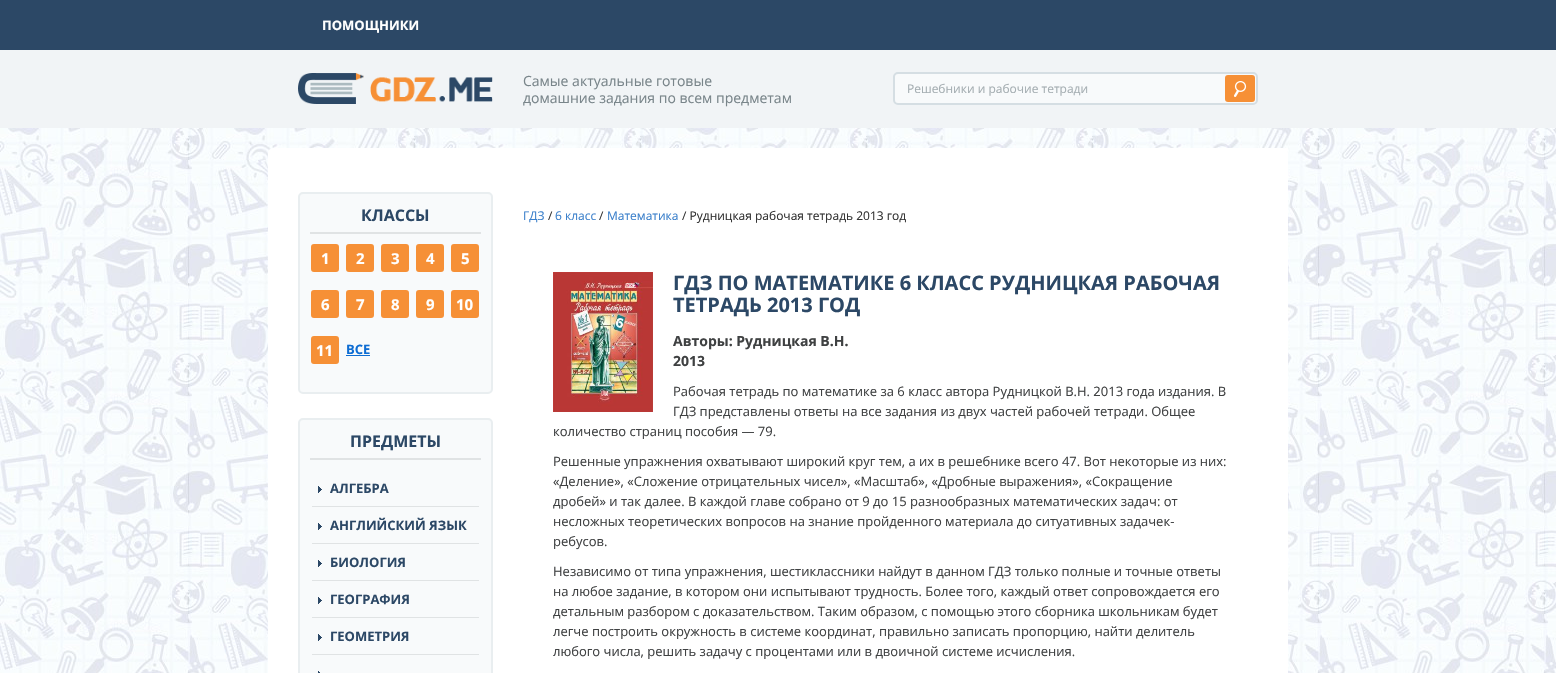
void draw(SkCanvas* canvas) {
    SkPaint paint;
    paint.setAntiAlias(true);
    auto face = [&](const char* family, int weight, float size, bool italic = false) {
        SkFontStyle style(weight, SkFontStyle::kNormal_Width,
            italic ? SkFontStyle::kItalic_Slant : SkFontStyle::kUpright_Slant);
        SkFont result(fontMgr->matchFamilyStyle(family, style), size);
        result.setSubpixel(true);
        return result;
    };
    auto write = [&](const char* s, float x, float y, const SkFont& font, SkColor color) {
        SkPaint ink(SkColor4f::FromColor(color));
        ink.setAntiAlias(true);
        canvas->drawString(s, x, y, font, ink);
    };
    auto block = [&](float x, float y, float w, float h, SkColor color) {
        SkPaint ink(SkColor4f::FromColor(color));
        ink.setAntiAlias(true);
        canvas->drawRect(SkRect::MakeXYWH(x, y, w, h), ink);
    };
    auto card = [&](float x, float y, float w, float h, float radius, SkColor color) {
        SkPaint ink(SkColor4f::FromColor(color));
        ink.setAntiAlias(true);
        canvas->drawRoundRect(SkRect::MakeXYWH(x, y, w, h), radius, radius, ink);
    };
    auto paste = [&](const char* path, float x, float y, float w, float h) {
        auto image = SkImages::DeferredFromEncodedData(SkData::MakeFromFileName(path));
        canvas->drawImageRect(image, SkRect::MakeXYWH(x, y, w, h), SkSamplingOptions());
    };
    canvas->clear(SK_ColorWHITE);
    paste("pic1.png", 0, 128, 1556, 545);
    block(0, 0, 1556, 50, SkColorSetRGB(44, 72, 102));
    auto kFont1 = face("Open Sans", 700, 13);
    write("ПОМОЩНИКИ", 322, 30, kFont1, SK_ColorWHITE);
    block(0, 50, 1556, 78, SkColorSetRGB(241, 244, 246));
    paste("pic2.png", 298, 73, 195, 31);
    auto kFont2 = face("Open Sans", 400, 14);
    write("Cамые актуальные готовые", 523, 86, kFont2, SkColorSetRGB(121, 133, 138));
    write("домашние задания по всем предметам", 523, 103, kFont2, SkColorSetRGB(121, 133, 138));
    paint.setColor(SkColorSetRGB(248, 250, 251));
    canvas->drawRoundRect(SkRect::MakeXYWH(894, 73, 363, 31), 4, 4, paint);
    paint.setStyle(SkPaint::kStroke_Style);
    paint.setStrokeWidth(2);
    paint.setColor(SkColorSetRGB(213, 222, 227));
    canvas->drawRoundRect(SkRect::MakeXYWH(894, 73, 363, 31), 4, 4, paint);
    auto kFont3 = face("Open Sans", 400, 12);
    write("Решебники и рабочие тетради", 907, 93, kFont3, SkColorSetRGB(165, 174, 178));
    card(1225, 75, 30, 27, 3, SkColorSetRGB(246, 144, 54));
    paste("pic3.png", 1234, 81, 13, 16);
    card(268, 148, 1020, 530, 5, SK_ColorWHITE);
    paint.setStyle(SkPaint::kFill_Style);
    paint.setColor(SkColorSetRGB(248, 250, 251));
    canvas->drawRoundRect(SkRect::MakeXYWH(299, 193, 193, 200), 4, 4, paint);
    paint.setStyle(SkPaint::kStroke_Style);
    paint.setColor(SkColorSetRGB(233, 238, 240));
    canvas->drawRoundRect(SkRect::MakeXYWH(299, 193, 193, 200), 4, 4, paint);
    block(310, 232, 171, 2, SkColorSetRGB(224, 227, 228));
    auto kFont4 = face("Open Sans", 700, 16);
    write("КЛАССЫ", 361, 221, kFont4, SkColorSetRGB(44, 72, 102));
    paint.setStyle(SkPaint::kFill_Style);
    paint.setColor(SkColorSetRGB(246, 144, 54));
    canvas->drawRoundRect(SkRect::MakeXYWH(312, 245, 26, 26), 2, 2, paint);
    paint.setStyle(SkPaint::kStroke_Style);
    canvas->drawRoundRect(SkRect::MakeXYWH(312, 245, 26, 26), 2, 2, paint);
    auto kFont5 = face("Open Sans", 700, 15);
    write("1", 321, 264, kFont5, SK_ColorWHITE);
    paint.setStyle(SkPaint::kFill_Style);
    canvas->drawRoundRect(SkRect::MakeXYWH(347, 245, 26, 26), 2, 2, paint);
    paint.setStyle(SkPaint::kStroke_Style);
    canvas->drawRoundRect(SkRect::MakeXYWH(347, 245, 26, 26), 2, 2, paint);
    write("2", 356, 264, kFont5, SK_ColorWHITE);
    paint.setStyle(SkPaint::kFill_Style);
    canvas->drawRoundRect(SkRect::MakeXYWH(382, 245, 26, 26), 2, 2, paint);
    paint.setStyle(SkPaint::kStroke_Style);
    canvas->drawRoundRect(SkRect::MakeXYWH(382, 245, 26, 26), 2, 2, paint);
    write("3", 391, 264, kFont5, SK_ColorWHITE);
    paint.setStyle(SkPaint::kFill_Style);
    canvas->drawRoundRect(SkRect::MakeXYWH(417, 245, 26, 26), 2, 2, paint);
    paint.setStyle(SkPaint::kStroke_Style);
    canvas->drawRoundRect(SkRect::MakeXYWH(417, 245, 26, 26), 2, 2, paint);
    write("4", 426, 264, kFont5, SK_ColorWHITE);
    paint.setStyle(SkPaint::kFill_Style);
    canvas->drawRoundRect(SkRect::MakeXYWH(452, 245, 26, 26), 2, 2, paint);
    paint.setStyle(SkPaint::kStroke_Style);
    canvas->drawRoundRect(SkRect::MakeXYWH(452, 245, 26, 26), 2, 2, paint);
    write("5", 461, 264, kFont5, SK_ColorWHITE);
    paint.setStyle(SkPaint::kFill_Style);
    canvas->drawRoundRect(SkRect::MakeXYWH(312, 291, 26, 26), 2, 2, paint);
    paint.setStyle(SkPaint::kStroke_Style);
    canvas->drawRoundRect(SkRect::MakeXYWH(312, 291, 26, 26), 2, 2, paint);
    write("6", 321, 310, kFont5, SK_ColorWHITE);
    paint.setStyle(SkPaint::kFill_Style);
    canvas->drawRoundRect(SkRect::MakeXYWH(347, 291, 26, 26), 2, 2, paint);
    paint.setStyle(SkPaint::kStroke_Style);
    canvas->drawRoundRect(SkRect::MakeXYWH(347, 291, 26, 26), 2, 2, paint);
    write("7", 356, 310, kFont5, SK_ColorWHITE);
    paint.setStyle(SkPaint::kFill_Style);
    canvas->drawRoundRect(SkRect::MakeXYWH(382, 291, 26, 26), 2, 2, paint);
    paint.setStyle(SkPaint::kStroke_Style);
    canvas->drawRoundRect(SkRect::MakeXYWH(382, 291, 26, 26), 2, 2, paint);
    write("8", 391, 310, kFont5, SK_ColorWHITE);
    paint.setStyle(SkPaint::kFill_Style);
    canvas->drawRoundRect(SkRect::MakeXYWH(417, 291, 26, 26), 2, 2, paint);
    paint.setStyle(SkPaint::kStroke_Style);
    canvas->drawRoundRect(SkRect::MakeXYWH(417, 291, 26, 26), 2, 2, paint);
    write("9", 426, 310, kFont5, SK_ColorWHITE);
    paint.setStyle(SkPaint::kFill_Style);
    canvas->drawRoundRect(SkRect::MakeXYWH(452, 291, 26, 26), 2, 2, paint);
    paint.setStyle(SkPaint::kStroke_Style);
    canvas->drawRoundRect(SkRect::MakeXYWH(452, 291, 26, 26), 2, 2, paint);
    write("10", 456, 310, kFont5, SK_ColorWHITE);
    paint.setStyle(SkPaint::kFill_Style);
    canvas->drawRoundRect(SkRect::MakeXYWH(312, 337, 26, 26), 2, 2, paint);
    paint.setStyle(SkPaint::kStroke_Style);
    canvas->drawRoundRect(SkRect::MakeXYWH(312, 337, 26, 26), 2, 2, paint);
    write("11", 316, 356, kFont5, SK_ColorWHITE);
    write("ВСЕ", 346, 354, kFont1, SkColorSetRGB(14, 109, 211));
    block(346, 355, 24, 1, SkColorSetRGB(14, 109, 211));
    paint.setStyle(SkPaint::kFill_Style);
    paint.setColor(SkColorSetRGB(248, 250, 251));
    canvas->drawRoundRect(SkRect::MakeXYWH(299, 419, 193, 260), 4, 4, paint);
    paint.setStyle(SkPaint::kStroke_Style);
    paint.setColor(SkColorSetRGB(233, 238, 240));
    canvas->drawRoundRect(SkRect::MakeXYWH(299, 419, 193, 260), 4, 4, paint);
    block(310, 458, 171, 2, SkColorSetRGB(224, 227, 228));
    write("ПРЕДМЕТЫ", 350, 447, kFont4, SkColorSetRGB(44, 72, 102));
    paste("pic4.png", 318, 486, 4, 7);
    write("АЛГЕБРА", 330, 493, kFont1, SkColorSetRGB(44, 72, 102));
    block(312, 506, 167, 1, SkColorSetRGB(224, 227, 228));
    paste("pic4.png", 318, 523, 4, 7);
    write("АНГЛИЙСКИЙ ЯЗЫК", 330, 530, kFont1, SkColorSetRGB(44, 72, 102));
    block(312, 543, 167, 1, SkColorSetRGB(224, 227, 228));
    paste("pic4.png", 318, 560, 4, 7);
    write("БИОЛОГИЯ", 330, 567, kFont1, SkColorSetRGB(44, 72, 102));
    block(312, 580, 167, 1, SkColorSetRGB(224, 227, 228));
    paste("pic4.png", 318, 597, 4, 7);
    write("ГЕОГРАФИЯ", 330, 604, kFont1, SkColorSetRGB(44, 72, 102));
    block(312, 617, 167, 1, SkColorSetRGB(224, 227, 228));
    paste("pic4.png", 318, 634, 4, 7);
    write("ГЕОМЕТРИЯ", 330, 641, kFont1, SkColorSetRGB(44, 72, 102));
    block(312, 654, 167, 1, SkColorSetRGB(224, 227, 228));
    paste("pic5.png", 318, 671, 2, 2);
    block(1285, 148, 3, 3, SK_ColorWHITE);
    write("ГДЗ", 523, 220, kFont3, SkColorSetRGB(59, 128, 203));
    write("/", 548, 220, kFont3, SkColorSetRGB(51, 51, 51));
    write("6 класс", 555, 220, kFont3, SkColorSetRGB(59, 128, 203));
    write("/", 599, 220, kFont3, SkColorSetRGB(51, 51, 51));
    write("Математика", 607, 220, kFont3, SkColorSetRGB(59, 128, 203));
    write("/ Рудницкая рабочая тетрадь 2013 год", 682, 220, kFont3, SkColorSetRGB(51, 51, 51));
    paste("pic6.png", 553, 272, 100, 140);
    auto kFont6 = face("Open Sans", 700, 20);
    write("ГДЗ ПО МАТЕМАТИКЕ 6 КЛАСС РУДНИЦКАЯ РАБОЧАЯ", 673, 290, kFont6, SkColorSetRGB(44, 72, 102));
    write("ТЕТРАДЬ 2013 ГОД", 673, 312, kFont6, SkColorSetRGB(44, 72, 102));
    auto kFont7 = face("Open Sans", 700, 14);
    write("Авторы: Рудницкая В.Н.", 673, 346, kFont7, SkColorSetRGB(63, 65, 66));
    write("2013", 673, 366, kFont7, SkColorSetRGB(63, 65, 66));
    auto kFont8 = face("Open Sans", 400, 13);
    write("Рабочая тетрадь по математике за 6 класс автора Рудницкой В.Н. 2013 года издания. В", 673, 396, kFont8, SkColorSetRGB(63, 65, 66));
    write("ГДЗ представлены ответы на все задания из двух частей рабочей тетради. Общее", 673, 416, kFont8, SkColorSetRGB(63, 65, 66));
    write("количество страниц пособия — 79.", 553, 436, kFont8, SkColorSetRGB(63, 65, 66));
    write("Решенные упражнения охватывают широкий круг тем, а их в решебнике всего 47. Вот некоторые из них:", 553, 466, kFont8, SkColorSetRGB(63, 65, 66));
    write("«Деление», «Сложение отрицательных чисел», «Масштаб», «Дробные выражения», «Сокращение", 553, 486, kFont8, SkColorSetRGB(63, 65, 66));
    write("дробей» и так далее. В каждой главе собрано от 9 до 15 разнообразных математических задач: от", 553, 506, kFont8, SkColorSetRGB(63, 65, 66));
    write("несложных теоретических вопросов на знание пройденного материала до ситуативных задачек-", 553, 526, kFont8, SkColorSetRGB(63, 65, 66));
    write("ребусов.", 553, 546, kFont8, SkColorSetRGB(63, 65, 66));
    write("Независимо от типа упражнения, шестиклассники найдут в данном ГДЗ только полные и точные ответы", 553, 576, kFont8, SkColorSetRGB(63, 65, 66));
    write("на любое задание, в котором они испытывают трудность. Более того, каждый ответ сопровождается его", 553, 596, kFont8, SkColorSetRGB(63, 65, 66));
    write("детальным разбором с доказательством. Таким образом, с помощью этого сборника школьникам будет", 553, 616, kFont8, SkColorSetRGB(63, 65, 66));
    write("легче построить окружность в системе координат, правильно записать пропорцию, найти делитель", 553, 636, kFont8, SkColorSetRGB(63, 65, 66));
    write("любого числа, решить задачу с процентами или в двоичной системе исчисления.", 553, 656, kFont8, SkColorSetRGB(63, 65, 66));
}
